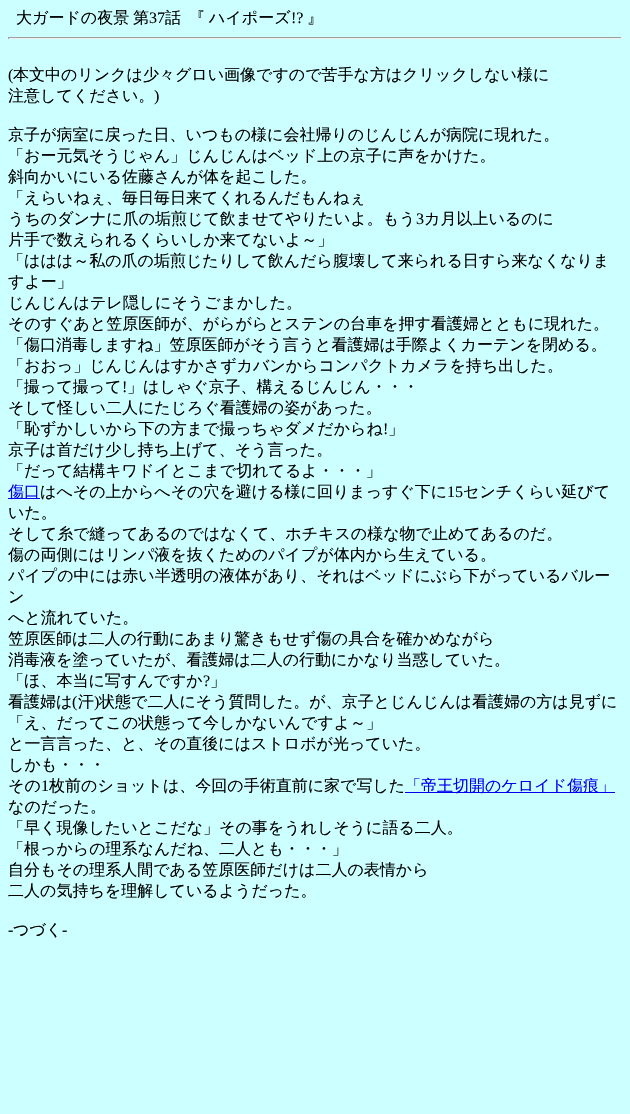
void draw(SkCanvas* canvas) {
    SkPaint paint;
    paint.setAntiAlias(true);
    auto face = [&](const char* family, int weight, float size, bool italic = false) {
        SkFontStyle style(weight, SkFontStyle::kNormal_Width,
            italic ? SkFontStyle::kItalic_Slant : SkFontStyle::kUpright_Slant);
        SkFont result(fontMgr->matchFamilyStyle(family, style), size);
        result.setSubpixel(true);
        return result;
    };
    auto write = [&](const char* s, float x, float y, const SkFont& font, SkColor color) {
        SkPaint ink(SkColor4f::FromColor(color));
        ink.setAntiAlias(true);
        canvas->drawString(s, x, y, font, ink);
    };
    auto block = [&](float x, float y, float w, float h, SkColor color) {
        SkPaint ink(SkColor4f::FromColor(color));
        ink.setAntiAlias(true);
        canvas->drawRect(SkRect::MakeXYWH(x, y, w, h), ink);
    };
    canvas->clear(SkColorSetRGB(204, 255, 255));
    auto kFont1 = face("WenQuanYi Zen Hei", 500, 16);
    write("大ガードの夜景", 16, 23, kFont1, SK_ColorBLACK);
    write("第", 133, 23, kFont1, SK_ColorBLACK);
    auto kFont2 = face("Liberation Serif", 400, 16);
    write("37", 149, 23, kFont2, SK_ColorBLACK);
    write("話", 165, 23, kFont1, SK_ColorBLACK);
    write("『", 189, 23, kFont1, SK_ColorBLACK);
    write("ハイポーズ", 209, 23, kFont1, SK_ColorBLACK);
    write("!?", 291, 23, kFont2, SK_ColorBLACK);
    write("』", 307, 23, kFont1, SK_ColorBLACK);
    block(8, 37, 614, 1, SkColorSetRGB(159, 159, 159));
    block(621, 37, 1, 2, SkColorSetRGB(238, 238, 238));
    block(8, 38, 614, 1, SkColorSetRGB(238, 238, 238));
    block(8, 37, 1, 2, SkColorSetRGB(159, 159, 159));
    write("(", 8, 80, kFont2, SK_ColorBLACK);
    write("本文中のリンクは少々グロい画像ですので苦手な方はクリックしない様に", 13, 80, kFont1, SK_ColorBLACK);
    write("注意してください。", 8, 101, kFont1, SK_ColorBLACK);
    write(")", 154, 101, kFont2, SK_ColorBLACK);
    write("京子が病室に戻った日、いつもの様に会社帰りのじんじんが病院に現れた。", 8, 140, kFont1, SK_ColorBLACK);
    write("「おー元気そうじゃん」じんじんはベッド上の京子に声をかけた。", 8, 161, kFont1, SK_ColorBLACK);
    write("斜向かいにいる佐藤さんが体を起こした。", 8, 182, kFont1, SK_ColorBLACK);
    write("「えらいねぇ、毎日毎日来てくれるんだもんねぇ", 8, 203, kFont1, SK_ColorBLACK);
    write("うちのダンナに爪の垢煎じて飲ませてやりたいよ。もう", 8, 224, kFont1, SK_ColorBLACK);
    write("3", 416, 224, kFont2, SK_ColorBLACK);
    write("カ月以上いるのに", 424, 224, kFont1, SK_ColorBLACK);
    write("片手で数えられるくらいしか来てないよ～」", 8, 245, kFont1, SK_ColorBLACK);
    write("「ははは～私の爪の垢煎じたりして飲んだら腹壊して来られる日すら来なくなりま", 8, 266, kFont1, SK_ColorBLACK);
    write("すよー」", 8, 287, kFont1, SK_ColorBLACK);
    write("じんじんはテレ隠しにそうごまかした。", 8, 308, kFont1, SK_ColorBLACK);
    write("そのすぐあと笠原医師が、がらがらとステンの台車を押す看護婦とともに現れた。", 8, 329, kFont1, SK_ColorBLACK);
    write("「傷口消毒しますね」笠原医師がそう言うと看護婦は手際よくカーテンを閉める。", 8, 350, kFont1, SK_ColorBLACK);
    write("「おおっ」じんじんはすかさずカバンからコンパクトカメラを持ち出した。", 8, 371, kFont1, SK_ColorBLACK);
    write("「撮って撮って", 8, 392, kFont1, SK_ColorBLACK);
    write("!", 122, 392, kFont2, SK_ColorBLACK);
    write("」はしゃぐ京子、構えるじんじん・・・", 127, 392, kFont1, SK_ColorBLACK);
    write("そして怪しい二人にたじろぐ看護婦の姿があった。", 8, 413, kFont1, SK_ColorBLACK);
    write("「恥ずかしいから下の方まで撮っちゃダメだからね", 8, 434, kFont1, SK_ColorBLACK);
    write("!", 383, 434, kFont2, SK_ColorBLACK);
    write("」", 388, 434, kFont1, SK_ColorBLACK);
    write("京子は首だけ少し持ち上げて、そう言った。", 8, 455, kFont1, SK_ColorBLACK);
    write("「だって結構キワドイとこまで切れてるよ・・・」", 8, 476, kFont1, SK_ColorBLACK);
    block(8, 498, 32, 1, SkColorSetRGB(0, 0, 238));
    write("傷口", 8, 497, kFont1, SkColorSetRGB(0, 0, 238));
    write("はへその上からへその穴を避ける様に回りまっすぐ下に", 40, 497, kFont1, SK_ColorBLACK);
    write("15", 447, 497, kFont2, SK_ColorBLACK);
    write("センチくらい延びて", 463, 497, kFont1, SK_ColorBLACK);
    write("いた。", 8, 518, kFont1, SK_ColorBLACK);
    write("そして糸で縫ってあるのではなくて、ホチキスの様な物で止めてあるのだ。", 8, 539, kFont1, SK_ColorBLACK);
    write("傷の両側にはリンパ液を抜くためのパイプが体内から生えている。", 8, 560, kFont1, SK_ColorBLACK);
    write("パイプの中には赤い半透明の液体があり、それはベッドにぶら下がっているバルー", 8, 581, kFont1, SK_ColorBLACK);
    write("ン", 8, 602, kFont1, SK_ColorBLACK);
    write("へと流れていた。", 8, 623, kFont1, SK_ColorBLACK);
    write("笠原医師は二人の行動にあまり驚きもせず傷の具合を確かめながら", 8, 644, kFont1, SK_ColorBLACK);
    write("消毒液を塗っていたが、看護婦は二人の行動にかなり当惑していた。", 8, 665, kFont1, SK_ColorBLACK);
    write("「ほ、本当に写すんですか", 8, 686, kFont1, SK_ColorBLACK);
    write("?", 203, 686, kFont2, SK_ColorBLACK);
    write("」", 210, 686, kFont1, SK_ColorBLACK);
    write("看護婦は", 8, 707, kFont1, SK_ColorBLACK);
    write("(", 72, 707, kFont2, SK_ColorBLACK);
    write("汗", 78, 707, kFont1, SK_ColorBLACK);
    write(")", 94, 707, kFont2, SK_ColorBLACK);
    write("状態で二人にそう質問した。が、京子とじんじんは看護婦の方は見ずに", 99, 707, kFont1, SK_ColorBLACK);
    write("「え、だってこの状態って今しかないんですよ～」", 8, 728, kFont1, SK_ColorBLACK);
    write("と一言言った、と、その直後にはストロボが光っていた。", 8, 749, kFont1, SK_ColorBLACK);
    write("しかも・・・", 8, 770, kFont1, SK_ColorBLACK);
    write("その", 8, 791, kFont1, SK_ColorBLACK);
    write("1", 41, 791, kFont2, SK_ColorBLACK);
    write("枚前のショットは、今回の手術直前に家で写した", 49, 791, kFont1, SK_ColorBLACK);
    block(405, 792, 210, 1, SkColorSetRGB(0, 0, 238));
    write("「帝王切開のケロイド傷痕」", 405, 791, kFont1, SkColorSetRGB(0, 0, 238));
    write("なのだった。", 8, 812, kFont1, SK_ColorBLACK);
    write("「早く現像したいとこだな」その事をうれしそうに語る二人。", 8, 833, kFont1, SK_ColorBLACK);
    write("「根っからの理系なんだね、二人とも・・・」", 8, 854, kFont1, SK_ColorBLACK);
    write("自分もその理系人間である笠原医師だけは二人の表情から", 8, 875, kFont1, SK_ColorBLACK);
    write("二人の気持ちを理解しているようだった。", 8, 896, kFont1, SK_ColorBLACK);
    write("-", 8, 935, kFont2, SK_ColorBLACK);
    write("つづく", 13, 935, kFont1, SK_ColorBLACK);
    write("-", 62, 935, kFont2, SK_ColorBLACK);
}
